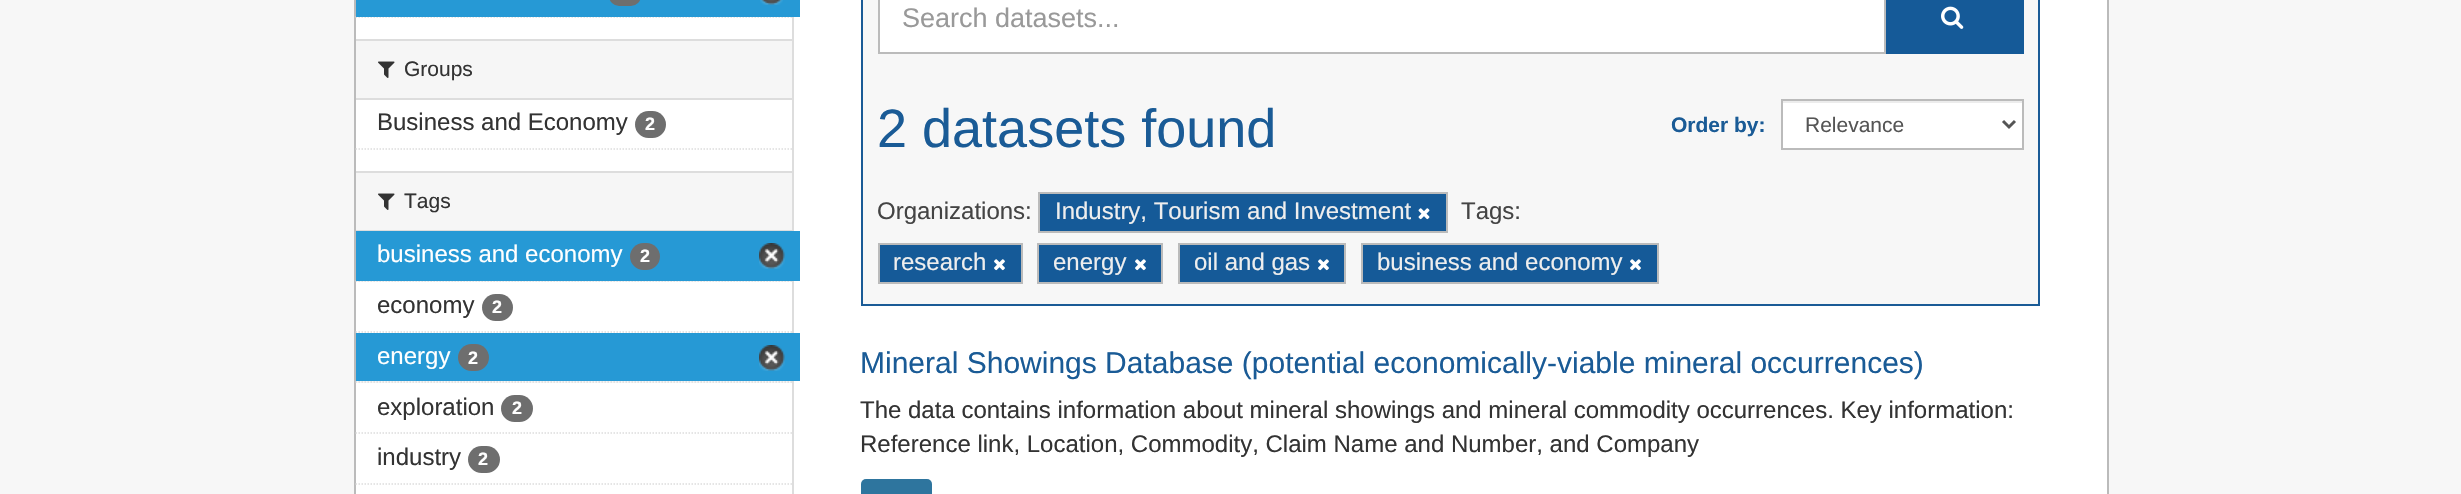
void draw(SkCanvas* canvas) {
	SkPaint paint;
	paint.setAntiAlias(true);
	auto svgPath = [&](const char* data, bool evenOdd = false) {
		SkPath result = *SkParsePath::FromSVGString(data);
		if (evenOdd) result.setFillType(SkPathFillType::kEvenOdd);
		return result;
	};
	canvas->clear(0xfff7f7f7);
	paint.setColor(0xffffffff);
	canvas->drawRect(SkRect::MakeXYWH(355, -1, 1753, 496), paint);
	paint.setStroke(true);
	paint.setStrokeWidth(2);
	paint.setColor(0xffbbbbbb);
	canvas->drawRect(SkRect::MakeXYWH(355, -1, 1753, 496), paint);
	paint.setStrokeWidth(1.5);
	paint.setColor(0xffdddddd);
	paint.setPathEffect(SkDashPathEffect::Make({{1.5f, 1.5f}}, 0));
	canvas->drawPath(svgPath("M355.5 17H792"), paint);
	paint.setPathEffect(nullptr);
	paint.setStroke(false);
	paint.setColor(0xff2699d5);
	canvas->drawRect(SkRect::MakeXYWH(356, 0, 444, 17), paint);
	paint.setColor(0xff6e6e6e);
	canvas->drawRoundRect(SkRect::MakeXYWH(609, -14, 32, 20), 13.5, 13.5, paint);
	canvas->drawImageRect(SkImages::DeferredFromEncodedData(SkData::MakeFromFileName("img1.png")), SkRect::MakeXYWH(760, 0, 23, 5), SkSamplingOptions());
	paint.setColor(0xfff6f6f6);
	canvas->drawRect(SkRect::MakeXYWH(356, 41, 436, 57), paint);
	paint.setColor(0xffdddddd);
	canvas->drawRect(SkRect::MakeXYWH(356, 39, 436, 2), paint);
	canvas->drawRect(SkRect::MakeXYWH(356, 98, 436, 2), paint);
	canvas->drawImageRect(SkImages::DeferredFromEncodedData(SkData::MakeFromFileName("img2.png")), SkRect::MakeXYWH(378, 61, 17, 17), SkSamplingOptions());
	SkFont f1(fontMgr->matchFamilyStyle("Liberation Sans", SkFontStyle::Normal()), 21);
	f1.setSubpixel(true);
	paint.setColor(0xff333333);
	canvas->drawString("Groups", 404, 76, f1, paint);
	SkFont f2(fontMgr->matchFamilyStyle("Liberation Sans", SkFontStyle::Normal()), 24);
	f2.setSubpixel(true);
	canvas->drawString("Business and Economy", 377, 130, f2, paint);
	paint.setColor(0xff6e6e6e);
	canvas->drawRoundRect(SkRect::MakeXYWH(635, 111, 31, 27), 13.5, 13.5, paint);
	SkFont f3(fontMgr->matchFamilyStyle("Liberation Sans", SkFontStyle::Bold()), 18);
	f3.setSubpixel(true);
	paint.setColor(0xffffffff);
	canvas->drawString("2", 645, 130, f3, paint);
	paint.setStroke(true);
	paint.setColor(0xffdddddd);
	paint.setPathEffect(SkDashPathEffect::Make({{1.5f, 1.5f}}, 0));
	canvas->drawPath(svgPath("M355.5 149H792"), paint);
	paint.setPathEffect(nullptr);
	paint.setStroke(false);
	paint.setColor(0xfff6f6f6);
	canvas->drawRect(SkRect::MakeXYWH(356, 173, 436, 57), paint);
	paint.setColor(0xffdddddd);
	canvas->drawRect(SkRect::MakeXYWH(356, 171, 436, 2), paint);
	canvas->drawRect(SkRect::MakeXYWH(356, 230, 436, 1), paint);
	canvas->drawImageRect(SkImages::DeferredFromEncodedData(SkData::MakeFromFileName("img2.png")), SkRect::MakeXYWH(378, 193, 17, 17), SkSamplingOptions());
	paint.setColor(0xff333333);
	canvas->drawString("Tags", 404, 208, f1, paint);
	paint.setColor(0xfff6f6f6);
	canvas->drawRect(SkRect::MakeXYWH(356, 281, 436, 1), paint);
	paint.setStroke(true);
	paint.setColor(0xffdddddd);
	paint.setPathEffect(SkDashPathEffect::Make({{1.5f, 1.5f}}, 0));
	canvas->drawPath(svgPath("M355.5 281H792"), paint);
	paint.setPathEffect(nullptr);
	paint.setStroke(false);
	canvas->drawRect(SkRect::MakeXYWH(792, 17, 2, 477), paint);
	paint.setColor(0xff2699d5);
	canvas->drawRect(SkRect::MakeXYWH(356, 231, 444, 50), paint);
	paint.setColor(0xffffffff);
	canvas->drawString("business and economy", 377, 262, f2, paint);
	paint.setColor(0xff6e6e6e);
	canvas->drawRoundRect(SkRect::MakeXYWH(630, 243, 30, 27), 13.5, 13.5, paint);
	paint.setColor(0xffffffff);
	canvas->drawString("2", 640, 262, f3, paint);
	canvas->drawImageRect(SkImages::DeferredFromEncodedData(SkData::MakeFromFileName("img3.png")), SkRect::MakeXYWH(759, 243, 26, 26), SkSamplingOptions());
	paint.setStroke(true);
	paint.setColor(0xffdddddd);
	paint.setPathEffect(SkDashPathEffect::Make({{1.5f, 1.5f}}, 0));
	canvas->drawPath(svgPath("M355.5 332H792"), paint);
	paint.setPathEffect(nullptr);
	paint.setStroke(false);
	paint.setColor(0xff333333);
	canvas->drawString("economy", 377, 313, f2, paint);
	paint.setColor(0xff6e6e6e);
	canvas->drawRoundRect(SkRect::MakeXYWH(482, 294, 31, 27), 13.5, 13.5, paint);
	paint.setColor(0xffffffff);
	canvas->drawString("2", 492, 313, f3, paint);
	paint.setColor(0xfff6f6f6);
	canvas->drawRect(SkRect::MakeXYWH(356, 381, 436, 2), paint);
	paint.setStroke(true);
	paint.setColor(0xffdddddd);
	paint.setPathEffect(SkDashPathEffect::Make({{1.5f, 1.5f}}, 0));
	canvas->drawPath(svgPath("M355.5 382H792"), paint);
	paint.setPathEffect(nullptr);
	paint.setStroke(false);
	paint.setColor(0xff2699d5);
	canvas->drawRect(SkRect::MakeXYWH(356, 333, 444, 48), paint);
	paint.setColor(0xffffffff);
	canvas->drawString("energy", 377, 364, f2, paint);
	paint.setColor(0xff6e6e6e);
	canvas->drawRoundRect(SkRect::MakeXYWH(458, 344, 31, 27), 13.5, 13.5, paint);
	paint.setColor(0xffffffff);
	canvas->drawString("2", 468, 364, f3, paint);
	canvas->drawImageRect(SkImages::DeferredFromEncodedData(SkData::MakeFromFileName("img3.png")), SkRect::MakeXYWH(759, 345, 26, 26), SkSamplingOptions());
	paint.setStroke(true);
	paint.setColor(0xffdddddd);
	paint.setPathEffect(SkDashPathEffect::Make({{1.5f, 1.5f}}, 0));
	canvas->drawPath(svgPath("M355.5 433H792"), paint);
	paint.setPathEffect(nullptr);
	paint.setStroke(false);
	paint.setColor(0xff333333);
	canvas->drawString("exploration", 377, 415, f2, paint);
	paint.setColor(0xff6e6e6e);
	canvas->drawRoundRect(SkRect::MakeXYWH(501, 395, 32, 27), 13.5, 13.5, paint);
	paint.setColor(0xffffffff);
	canvas->drawString("2", 512, 414, f3, paint);
	paint.setStroke(true);
	paint.setColor(0xffdddddd);
	paint.setPathEffect(SkDashPathEffect::Make({{1.5f, 1.5f}}, 0));
	canvas->drawPath(svgPath("M355.5 484H792"), paint);
	paint.setPathEffect(nullptr);
	paint.setStroke(false);
	paint.setColor(0xff333333);
	canvas->drawString("industry", 377, 465, f2, paint);
	paint.setColor(0xff6e6e6e);
	canvas->drawRoundRect(SkRect::MakeXYWH(468, 446, 32, 27), 13.5, 13.5, paint);
	paint.setColor(0xffffffff);
	canvas->drawString("2", 478, 465, f3, paint);
	paint.setColor(0xfff7f7f7);
	canvas->drawRect(SkRect::MakeXYWH(862, -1, 1177, 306), paint);
	paint.setStroke(true);
	paint.setStrokeWidth(2);
	paint.setColor(0xff1a5b96);
	canvas->drawRect(SkRect::MakeXYWH(862, -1, 1177, 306), paint);
	paint.setStroke(false);
	paint.setColor(0xffffffff);
	canvas->drawRect(SkRect::MakeXYWH(879, -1, 1006, 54), paint);
	paint.setStroke(true);
	paint.setColor(0xffbbbbbb);
	canvas->drawRect(SkRect::MakeXYWH(879, -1, 1006, 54), paint);
	SkFont f4(fontMgr->matchFamilyStyle("Liberation Sans", SkFontStyle::Normal()), 27);
	f4.setSubpixel(true);
	paint.setStroke(false);
	paint.setColor(0xff999999);
	canvas->drawString("Search datasets...", 902, 27, f4, paint);
	paint.setColor(0xff155a98);
	canvas->drawRect(SkRect::MakeXYWH(1886, 0, 138, 54), paint);
	canvas->drawImageRect(SkImages::DeferredFromEncodedData(SkData::MakeFromFileName("img4.png")), SkRect::MakeXYWH(1941, 6, 23, 23), SkSamplingOptions());
	SkFont f5(fontMgr->matchFamilyStyle("Liberation Sans", SkFontStyle::Normal()), 54);
	f5.setSubpixel(true);
	paint.setColor(0xff1a5b96);
	canvas->drawString("2 datasets found", 877, 147, f5, paint);
	SkFont f6(fontMgr->matchFamilyStyle("Liberation Sans", SkFontStyle::Bold()), 21);
	f6.setSubpixel(true);
	canvas->drawString("Order by:", 1671, 132, f6, paint);
	paint.setColor(0xffffffff);
	canvas->drawRect(SkRect::MakeXYWH(1783, 103, 239, 45), paint);
	paint.setColor(0xffececec);
	canvas->drawRect(SkRect::MakeXYWH(1782, 101, 240, 2), paint);
	paint.setStroke(true);
	paint.setColor(0xffbbbbbb);
	canvas->drawRect(SkRect::MakeXYWH(1782, 100, 241, 49), paint);
	paint.setStrokeWidth(3);
	paint.setColor(0xff555555);
	canvas->drawPath(svgPath("M2003 121L2009 127L2015 121"), paint);
	paint.setStroke(false);
	canvas->drawString("Relevance", 1805, 132, f1, paint);
	paint.setColor(0xff444444);
	canvas->drawString("Organizations:", 877, 219, f2, paint);
	paint.setColor(0xff155a98);
	canvas->drawRect(SkRect::MakeXYWH(1039, 193, 408, 39), paint);
	paint.setStroke(true);
	paint.setStrokeWidth(2);
	paint.setColor(0xffbbbbbb);
	canvas->drawRect(SkRect::MakeXYWH(1039, 193, 408, 39), paint);
	paint.setStroke(false);
	paint.setColor(0xffeeeeee);
	canvas->drawString("Industry, Tourism and Investment", 1055, 219, f2, paint);
	canvas->drawImageRect(SkImages::DeferredFromEncodedData(SkData::MakeFromFileName("img5.png")), SkRect::MakeXYWH(1418, 208, 12, 12), SkSamplingOptions());
	paint.setColor(0xff444444);
	canvas->drawString("Tags:", 1461, 219, f2, paint);
	paint.setColor(0xff155a98);
	canvas->drawRect(SkRect::MakeXYWH(879, 244, 143, 39), paint);
	paint.setStroke(true);
	paint.setColor(0xffbbbbbb);
	canvas->drawRect(SkRect::MakeXYWH(879, 244, 143, 39), paint);
	paint.setStroke(false);
	paint.setColor(0xffeeeeee);
	canvas->drawString("research", 893, 270, f2, paint);
	canvas->drawImageRect(SkImages::DeferredFromEncodedData(SkData::MakeFromFileName("img6.png")), SkRect::MakeXYWH(994, 259, 11, 12), SkSamplingOptions());
	paint.setColor(0xff155a98);
	canvas->drawRect(SkRect::MakeXYWH(1038, 244, 124, 39), paint);
	paint.setStroke(true);
	paint.setColor(0xffbbbbbb);
	canvas->drawRect(SkRect::MakeXYWH(1038, 244, 124, 39), paint);
	paint.setStroke(false);
	paint.setColor(0xffeeeeee);
	canvas->drawString("energy", 1053, 270, f2, paint);
	canvas->drawImageRect(SkImages::DeferredFromEncodedData(SkData::MakeFromFileName("img6.png")), SkRect::MakeXYWH(1135, 259, 11, 12), SkSamplingOptions());
	paint.setColor(0xff155a98);
	canvas->drawRect(SkRect::MakeXYWH(1179, 244, 166, 39), paint);
	paint.setStroke(true);
	paint.setColor(0xffbbbbbb);
	canvas->drawRect(SkRect::MakeXYWH(1179, 244, 166, 39), paint);
	paint.setStroke(false);
	paint.setColor(0xffeeeeee);
	canvas->drawString("oil and gas", 1194, 270, f2, paint);
	canvas->drawImageRect(SkImages::DeferredFromEncodedData(SkData::MakeFromFileName("img6.png")), SkRect::MakeXYWH(1318, 259, 11, 12), SkSamplingOptions());
	paint.setColor(0xff155a98);
	canvas->drawRect(SkRect::MakeXYWH(1362, 244, 296, 39), paint);
	paint.setStroke(true);
	paint.setColor(0xffbbbbbb);
	canvas->drawRect(SkRect::MakeXYWH(1362, 244, 296, 39), paint);
	paint.setStroke(false);
	paint.setColor(0xffeeeeee);
	canvas->drawString("business and economy", 1377, 270, f2, paint);
	canvas->drawImageRect(SkImages::DeferredFromEncodedData(SkData::MakeFromFileName("img6.png")), SkRect::MakeXYWH(1630, 259, 11, 12), SkSamplingOptions());
	SkFont f7(fontMgr->matchFamilyStyle("Liberation Sans", SkFontStyle::Normal()), 30);
	f7.setSubpixel(true);
	paint.setColor(0xff1a5b96);
	canvas->drawString("Mineral Showings Database (potential economically-viable mineral occurrences)", 860, 373, f7, paint);
	paint.setColor(0xff333333);
	canvas->drawString("The data contains information about mineral showings and mineral commodity occurrences. Key information:", 860, 418, f2, paint);
	canvas->drawString("Reference link, Location, Commodity, Claim Name and Number, and Company", 860, 452, f2, paint);
	paint.setColor(0xff2e759e);
	canvas->drawRoundRect(SkRect::MakeXYWH(861, 479, 71, 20), 5, 5, paint);
}
